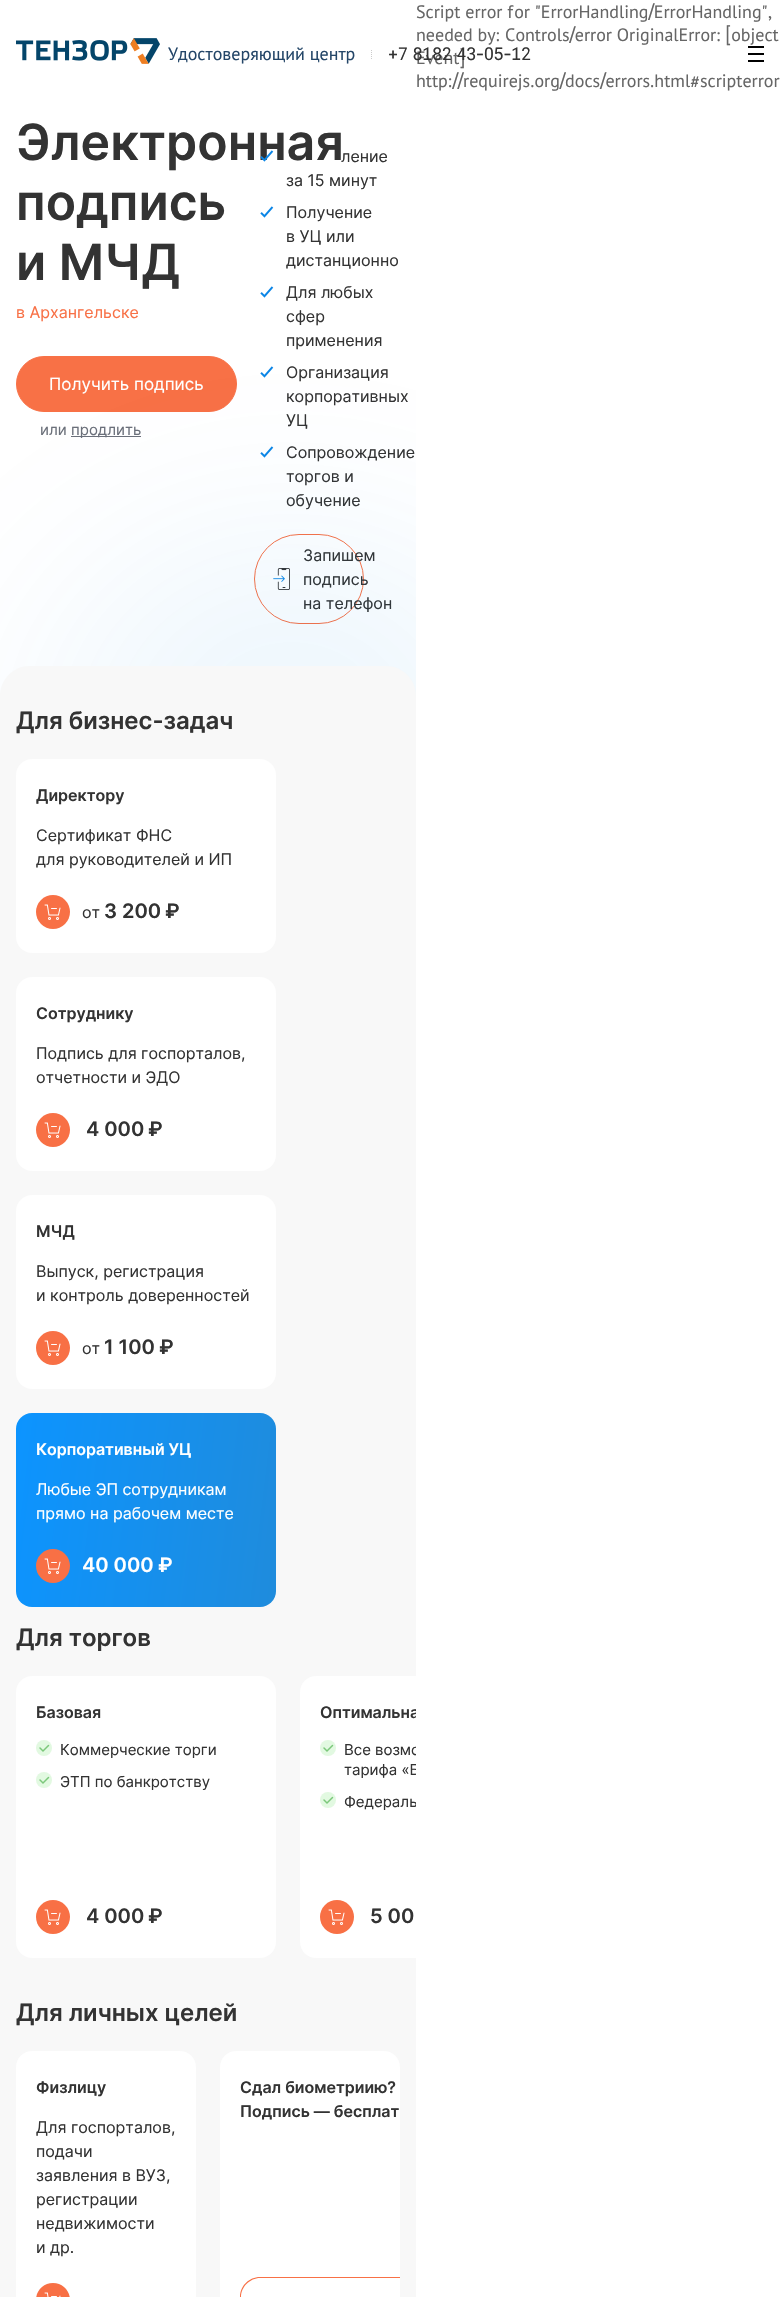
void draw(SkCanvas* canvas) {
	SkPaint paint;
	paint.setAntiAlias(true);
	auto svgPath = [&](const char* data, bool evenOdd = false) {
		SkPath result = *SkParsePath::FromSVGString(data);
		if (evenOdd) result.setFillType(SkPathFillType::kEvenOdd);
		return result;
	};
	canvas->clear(0xffffffff);
	SkFont f1(fontMgr->matchFamilyStyle("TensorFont", SkFontStyle::Normal()), 18);
	f1.setSubpixel(true);
	paint.setColor(0xff666666);
	canvas->drawString("Script error for \"ErrorHandling/ErrorHandling\",", 416, 18, f1, paint);
	canvas->drawString("needed by: Controls/error OriginalError: [object", 416, 41, f1, paint);
	canvas->drawString("Event]", 416, 64, f1, paint);
	canvas->drawString("http://requirejs.org/docs/errors.html#scripterror", 416, 87, f1, paint);
	SkFont f2(fontMgr->matchFamilyStyle("Inter", SkFontStyle(600, SkFontStyle::kNormal_Width, SkFontStyle::kUpright_Slant)), 50);
	f2.setSubpixel(true);
	paint.setColor(0xff333333);
	canvas->drawString("Электронная", 16, 160, f2, paint);
	canvas->drawString("подпись", 16, 220, f2, paint);
	canvas->drawString("и МЧД", 16, 280, f2, paint);
	SkFont f3(fontMgr->matchFamilyStyle("Inter", SkFontStyle::Normal()), 16);
	f3.setSubpixel(true);
	paint.setColor(0xfff87045);
	canvas->drawString("в Архангельске", 16, 318, f3, paint);
	canvas->drawRoundRect(SkRect::MakeXYWH(16.5, 356.5, 220, 55), 27.5, 27.5, paint);
	paint.setStroke(true);
	paint.setStrokeWidth(1);
	canvas->drawRoundRect(SkRect::MakeXYWH(16.5, 356.5, 220, 55), 27.5, 27.5, paint);
	SkFont f4(fontMgr->matchFamilyStyle("Inter", SkFontStyle::Normal()), 17);
	f4.setSubpixel(true);
	paint.setStroke(false);
	paint.setColor(0xffffffff);
	canvas->drawString("Получить подпись", 49, 390, f4, paint);
	SkFont f5(fontMgr->matchFamilyStyle("Inter", SkFontStyle::Normal()), 15);
	f5.setSubpixel(true);
	paint.setColor(0xff6a6f79);
	canvas->drawString("или", 40, 435, f5, paint);
	canvas->drawRect(SkRect::MakeXYWH(71, 436, 70, 1), paint);
	canvas->drawString("продлить", 71, 435, f5, paint);
	canvas->drawImageRect(SkImages::DeferredFromEncodedData(SkData::MakeFromFileName("img1.png")), SkRect::MakeXYWH(260, 150, 14, 12), SkSamplingOptions());
	paint.setColor(0xff333333);
	canvas->drawString("ление", 341, 162, f3, paint);
	canvas->drawString("за 15 минут", 286, 186, f3, paint);
	canvas->drawImageRect(SkImages::DeferredFromEncodedData(SkData::MakeFromFileName("img2.png")), SkRect::MakeXYWH(260, 206, 14, 12), SkSamplingOptions());
	canvas->drawString("Получение", 286, 218, f3, paint);
	canvas->drawString("в УЦ или", 286, 242, f3, paint);
	canvas->drawString("дистанционно", 286, 266, f3, paint);
	canvas->drawImageRect(SkImages::DeferredFromEncodedData(SkData::MakeFromFileName("img2.png")), SkRect::MakeXYWH(260, 286, 14, 12), SkSamplingOptions());
	canvas->drawString("Для любых", 286, 298, f3, paint);
	canvas->drawString("сфер", 286, 322, f3, paint);
	canvas->drawString("применения", 286, 346, f3, paint);
	canvas->drawImageRect(SkImages::DeferredFromEncodedData(SkData::MakeFromFileName("img2.png")), SkRect::MakeXYWH(260, 366, 14, 12), SkSamplingOptions());
	canvas->drawString("Организация", 286, 378, f3, paint);
	canvas->drawString("корпоративных", 286, 402, f3, paint);
	canvas->drawString("УЦ", 286, 426, f3, paint);
	canvas->drawImageRect(SkImages::DeferredFromEncodedData(SkData::MakeFromFileName("img2.png")), SkRect::MakeXYWH(260, 446, 14, 12), SkSamplingOptions());
	canvas->drawString("Сопровождение", 286, 458, f3, paint);
	canvas->drawString("торгов и", 286, 482, f3, paint);
	canvas->drawString("обучение", 286, 506, f3, paint);
	paint.setStroke(true);
	paint.setColor(0xfff87045);
	canvas->drawRoundRect(SkRect::MakeXYWH(254.5, 534.5, 109, 89), 44.5, 44.5, paint);
	paint.setStroke(false);
	paint.setColor(0xff333333);
	canvas->drawString("Запишем", 303, 561, f3, paint);
	canvas->drawImageRect(SkImages::DeferredFromEncodedData(SkData::MakeFromFileName("img3.png")), SkRect::MakeXYWH(273, 568, 17, 22), SkSamplingOptions());
	canvas->drawString("подпись", 303, 585, f3, paint);
	canvas->drawString("на телефон", 303, 609, f3, paint);
	canvas->save();
	canvas->clipRect(SkRect::MakeXYWH(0, 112, 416, 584));
	paint.setColor(0x1a0a85e6);
	paint.setMaskFilter(SkMaskFilter::MakeBlur(kNormal_SkBlurStyle, 125));
	canvas->drawRoundRect(SkRect::MakeXYWH(41, 562, 501, 501), 250.5, 250.5, paint);
	paint.setMaskFilter(nullptr);
	canvas->restore();
	paint.setColor(0xfff8f8f8);
	canvas->drawPath(svgPath("M30 666H386C402.5 666 416 679.5 416 696V2297H0V696C0 679.5 13.5 666 30 666Z"), paint);
	SkFont f6(fontMgr->matchFamilyStyle("Inter", SkFontStyle(600, SkFontStyle::kNormal_Width, SkFontStyle::kUpright_Slant)), 24);
	f6.setSubpixel(true);
	paint.setColor(0xff333333);
	canvas->drawString("Для бизнес-задач", 16, 729, f6, paint);
	paint.setColor(0xffffffff);
	canvas->drawRoundRect(SkRect::MakeXYWH(16, 759, 260, 194), 16, 16, paint);
	SkFont f7(fontMgr->matchFamilyStyle("Inter", SkFontStyle(600, SkFontStyle::kNormal_Width, SkFontStyle::kUpright_Slant)), 16);
	f7.setSubpixel(true);
	paint.setColor(0xff333333);
	canvas->drawString("Директору", 36, 801, f7, paint);
	canvas->drawString("Сертификат ФНС", 36, 841, f3, paint);
	canvas->drawString("для руководителей и ИП", 36, 865, f3, paint);
	paint.setColor(0xfff87045);
	canvas->drawCircle(53, 912, 17, paint);
	canvas->drawImageRect(SkImages::DeferredFromEncodedData(SkData::MakeFromFileName("img4.png")), SkRect::MakeXYWH(44, 904, 17, 16), SkSamplingOptions());
	paint.setColor(0xff333333);
	canvas->drawString("от", 82, 918, f3, paint);
	SkFont f8(fontMgr->matchFamilyStyle("Inter", SkFontStyle(600, SkFontStyle::kNormal_Width, SkFontStyle::kUpright_Slant)), 20);
	f8.setSubpixel(true);
	canvas->drawString("3 200", 104, 918, f8, paint);
	canvas->drawString("₽", 165, 918, f8, paint);
	paint.setColor(0xffffffff);
	canvas->drawRoundRect(SkRect::MakeXYWH(16, 977, 260, 194), 16, 16, paint);
	paint.setColor(0xff333333);
	canvas->drawString("Сотруднику", 36, 1019, f7, paint);
	canvas->drawString("Подпись для госпорталов,", 36, 1059, f3, paint);
	canvas->drawString("отчетности и ЭДО", 36, 1083, f3, paint);
	paint.setColor(0xfff87045);
	canvas->drawCircle(53, 1130, 17, paint);
	canvas->drawImageRect(SkImages::DeferredFromEncodedData(SkData::MakeFromFileName("img4.png")), SkRect::MakeXYWH(44, 1122, 17, 16), SkSamplingOptions());
	paint.setColor(0xff333333);
	canvas->drawString("4 000", 86, 1136, f8, paint);
	canvas->drawString("₽", 148, 1136, f8, paint);
	paint.setColor(0xffffffff);
	canvas->drawRoundRect(SkRect::MakeXYWH(16, 1195, 260, 194), 16, 16, paint);
	paint.setColor(0xff333333);
	canvas->drawString("МЧД", 36, 1237, f7, paint);
	canvas->drawString("Выпуск, регистрация", 36, 1277, f3, paint);
	canvas->drawString("и контроль доверенностей", 36, 1301, f3, paint);
	paint.setColor(0xfff87045);
	canvas->drawCircle(53, 1348, 17, paint);
	canvas->drawImageRect(SkImages::DeferredFromEncodedData(SkData::MakeFromFileName("img4.png")), SkRect::MakeXYWH(44, 1340, 17, 16), SkSamplingOptions());
	paint.setColor(0xff333333);
	canvas->drawString("от", 82, 1354, f3, paint);
	canvas->drawString("1 100", 104, 1354, f8, paint);
	canvas->drawString("₽", 159, 1354, f8, paint);
	{
		const SkColor colors[] = {0xff0c94ff, 0xff238ad5};
		const float stops[] = {0, 1};
		const SkPoint ends[] = {{6.3, 1493}, {344, 1534}};
		paint.setShader(SkGradientShader::MakeLinear(ends, colors, stops, 2, SkTileMode::kClamp));
		paint.setAlpha(255);
	}
	canvas->drawRoundRect(SkRect::MakeXYWH(16, 1413, 260, 194), 16, 16, paint);
	paint.setShader(nullptr);
	paint.setColor(0xffffffff);
	canvas->drawString("Корпоративный УЦ", 36, 1455, f7, paint);
	canvas->drawString("Любые ЭП сотрудникам", 36, 1495, f3, paint);
	canvas->drawString("прямо на рабочем месте", 36, 1519, f3, paint);
	paint.setColor(0xfff87045);
	canvas->drawCircle(53, 1566, 17, paint);
	canvas->drawImageRect(SkImages::DeferredFromEncodedData(SkData::MakeFromFileName("img4.png")), SkRect::MakeXYWH(44, 1558, 17, 16), SkSamplingOptions());
	paint.setColor(0xffffffff);
	canvas->drawString("40 000", 82, 1572, f8, paint);
	canvas->drawString("₽", 158, 1572, f8, paint);
	paint.setColor(0xff333333);
	canvas->drawString("Для торгов", 16, 1646, f6, paint);
	paint.setColor(0xffffffff);
	canvas->drawRoundRect(SkRect::MakeXYWH(16, 1676, 260, 282), 16, 16, paint);
	paint.setColor(0xff333333);
	canvas->drawString("Базовая", 36, 1718, f7, paint);
	paint.setColor(0xffe2f9e1);
	canvas->drawCircle(44, 1748, 8, paint);
	paint.setStroke(true);
	paint.setStrokeWidth(1.5);
	paint.setStrokeCap(SkPaint::kRound_Cap);
	paint.setColor(0xff7cc87b);
	canvas->drawPath(svgPath("M40 1748L43 1751L48.5 1745.5"), paint);
	paint.setStroke(false);
	paint.setColor(0xff333333);
	canvas->drawString("Коммерческие торги", 60, 1755, f5, paint);
	paint.setColor(0xffe2f9e1);
	canvas->drawCircle(44, 1780, 8, paint);
	paint.setStroke(true);
	paint.setColor(0xff7cc87b);
	canvas->drawPath(svgPath("M40 1780L43 1783L48.5 1777.5"), paint);
	paint.setStroke(false);
	paint.setColor(0xff333333);
	canvas->drawString("ЭТП по банкротству", 60, 1787, f5, paint);
	paint.setColor(0xfff87045);
	canvas->drawCircle(53, 1917, 17, paint);
	canvas->drawImageRect(SkImages::DeferredFromEncodedData(SkData::MakeFromFileName("img4.png")), SkRect::MakeXYWH(44, 1909, 17, 16), SkSamplingOptions());
	paint.setColor(0xff333333);
	canvas->drawString("4 000", 86, 1923, f8, paint);
	canvas->drawString("₽", 148, 1923, f8, paint);
	paint.setColor(0xffffffff);
	canvas->drawPath(svgPath("M316 1676H416V1958H316C307 1958 300 1951 300 1942V1692C300 1683 307 1676 316 1676Z"), paint);
	canvas->save();
	canvas->clipRect(SkRect::MakeXYWH(0, 1676, 416, 322));
	paint.setColor(0xff333333);
	canvas->drawString("Оптимальна", 320, 1718, f7, paint);
	canvas->restore();
	paint.setColor(0xffe2f9e1);
	canvas->drawCircle(328, 1748, 8, paint);
	paint.setStroke(true);
	paint.setColor(0xff7cc87b);
	canvas->drawPath(svgPath("M324 1748L327 1751L332.5 1745.5"), paint);
	canvas->save();
	canvas->clipRect(SkRect::MakeXYWH(0, 1676, 416, 322));
	paint.setStroke(false);
	paint.setColor(0xff333333);
	canvas->drawString("Все возмо", 344, 1755, f5, paint);
	canvas->drawString("тарифа «Б", 344, 1775, f5, paint);
	canvas->restore();
	paint.setColor(0xffe2f9e1);
	canvas->drawCircle(328, 1800, 8, paint);
	paint.setStroke(true);
	paint.setColor(0xff7cc87b);
	canvas->drawPath(svgPath("M324 1800L327 1803L332.5 1797.5"), paint);
	canvas->save();
	canvas->clipRect(SkRect::MakeXYWH(0, 1676, 416, 322));
	paint.setStroke(false);
	paint.setColor(0xff333333);
	canvas->drawString("Федераль", 344, 1807, f5, paint);
	canvas->restore();
	paint.setColor(0xfff87045);
	canvas->drawCircle(337, 1917, 17, paint);
	canvas->drawImageRect(SkImages::DeferredFromEncodedData(SkData::MakeFromFileName("img4.png")), SkRect::MakeXYWH(328, 1909, 17, 16), SkSamplingOptions());
	paint.setColor(0xff333333);
	canvas->drawString("5 00", 370, 1923, f8, paint);
	canvas->drawString("Для личных целей", 16, 2021, f6, paint);
	paint.setColor(0xffffffff);
	canvas->drawPath(svgPath("M32 2051H180C189 2051 196 2058 196 2067V2297H16V2067C16 2058 23 2051 32 2051Z"), paint);
	paint.setColor(0xff333333);
	canvas->drawString("Физлицу", 36, 2093, f7, paint);
	canvas->drawString("Для госпорталов,", 36, 2133, f3, paint);
	canvas->drawString("подачи", 36, 2157, f3, paint);
	canvas->drawString("заявления в ВУЗ,", 36, 2181, f3, paint);
	canvas->drawString("регистрации", 36, 2205, f3, paint);
	canvas->drawString("недвижимости", 36, 2229, f3, paint);
	canvas->drawString("и др.", 36, 2253, f3, paint);
	paint.setColor(0xfff87045);
	canvas->drawPath(svgPath("M53 2283C62.5 2283 70 2290.5 70 2300V2297H36V2300C36 2290.5 43.5 2283 53 2283Z"), paint);
	canvas->drawImageRect(SkImages::DeferredFromEncodedData(SkData::MakeFromFileName("img5.png")), SkRect::MakeXYWH(44, 2292, 17, 5), SkSamplingOptions());
	paint.setColor(0xffffffff);
	canvas->drawPath(svgPath("M236 2051H384C393 2051 400 2058 400 2067V2297H220V2067C220 2058 227 2051 236 2051Z"), paint);
	paint.setColor(0xff333333);
	canvas->drawString("Сдал биометриию?", 240, 2093, f7, paint);
	canvas->drawString("Подпись — бесплат", 240, 2117, f7, paint);
	paint.setColor(0xfff87045);
	canvas->drawPath(svgPath("M260 2277C249 2277 240 2286 240 2297C240 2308 249 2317 260 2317H400V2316H260C250 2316 241 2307 241 2297C241 2287 250 2278 260 2278H400V2277Z"), paint);
	canvas->drawImageRect(SkImages::DeferredFromEncodedData(SkData::MakeFromFileName("img6.png")), SkRect::MakeXYWH(16, 38, 144, 26), SkSamplingOptions());
	paint.setColor(0xff244668);
	canvas->drawString("Удостоверяющий центр", 168, 60, f1, paint);
	paint.setStroke(true);
	paint.setStrokeWidth(1);
	paint.setStrokeCap(SkPaint::kButt_Cap);
	paint.setColor(0xffcccccc);
	paint.setPathEffect(SkDashPathEffect::Make({{1, 1}}, 0));
	canvas->drawPath(svgPath("M371.5 50V60"), paint);
	paint.setPathEffect(nullptr);
	paint.setStroke(false);
	paint.setColor(0xff333333);
	canvas->drawString("+7 8182 43-05-12", 388, 60, f1, paint);
	paint.setColor(0xff000000);
	canvas->drawRect(SkRect::MakeXYWH(748, 46, 16, 2), paint);
	canvas->drawRect(SkRect::MakeXYWH(748, 53, 16, 2), paint);
	canvas->drawRect(SkRect::MakeXYWH(748, 60, 16, 2), paint);
}
